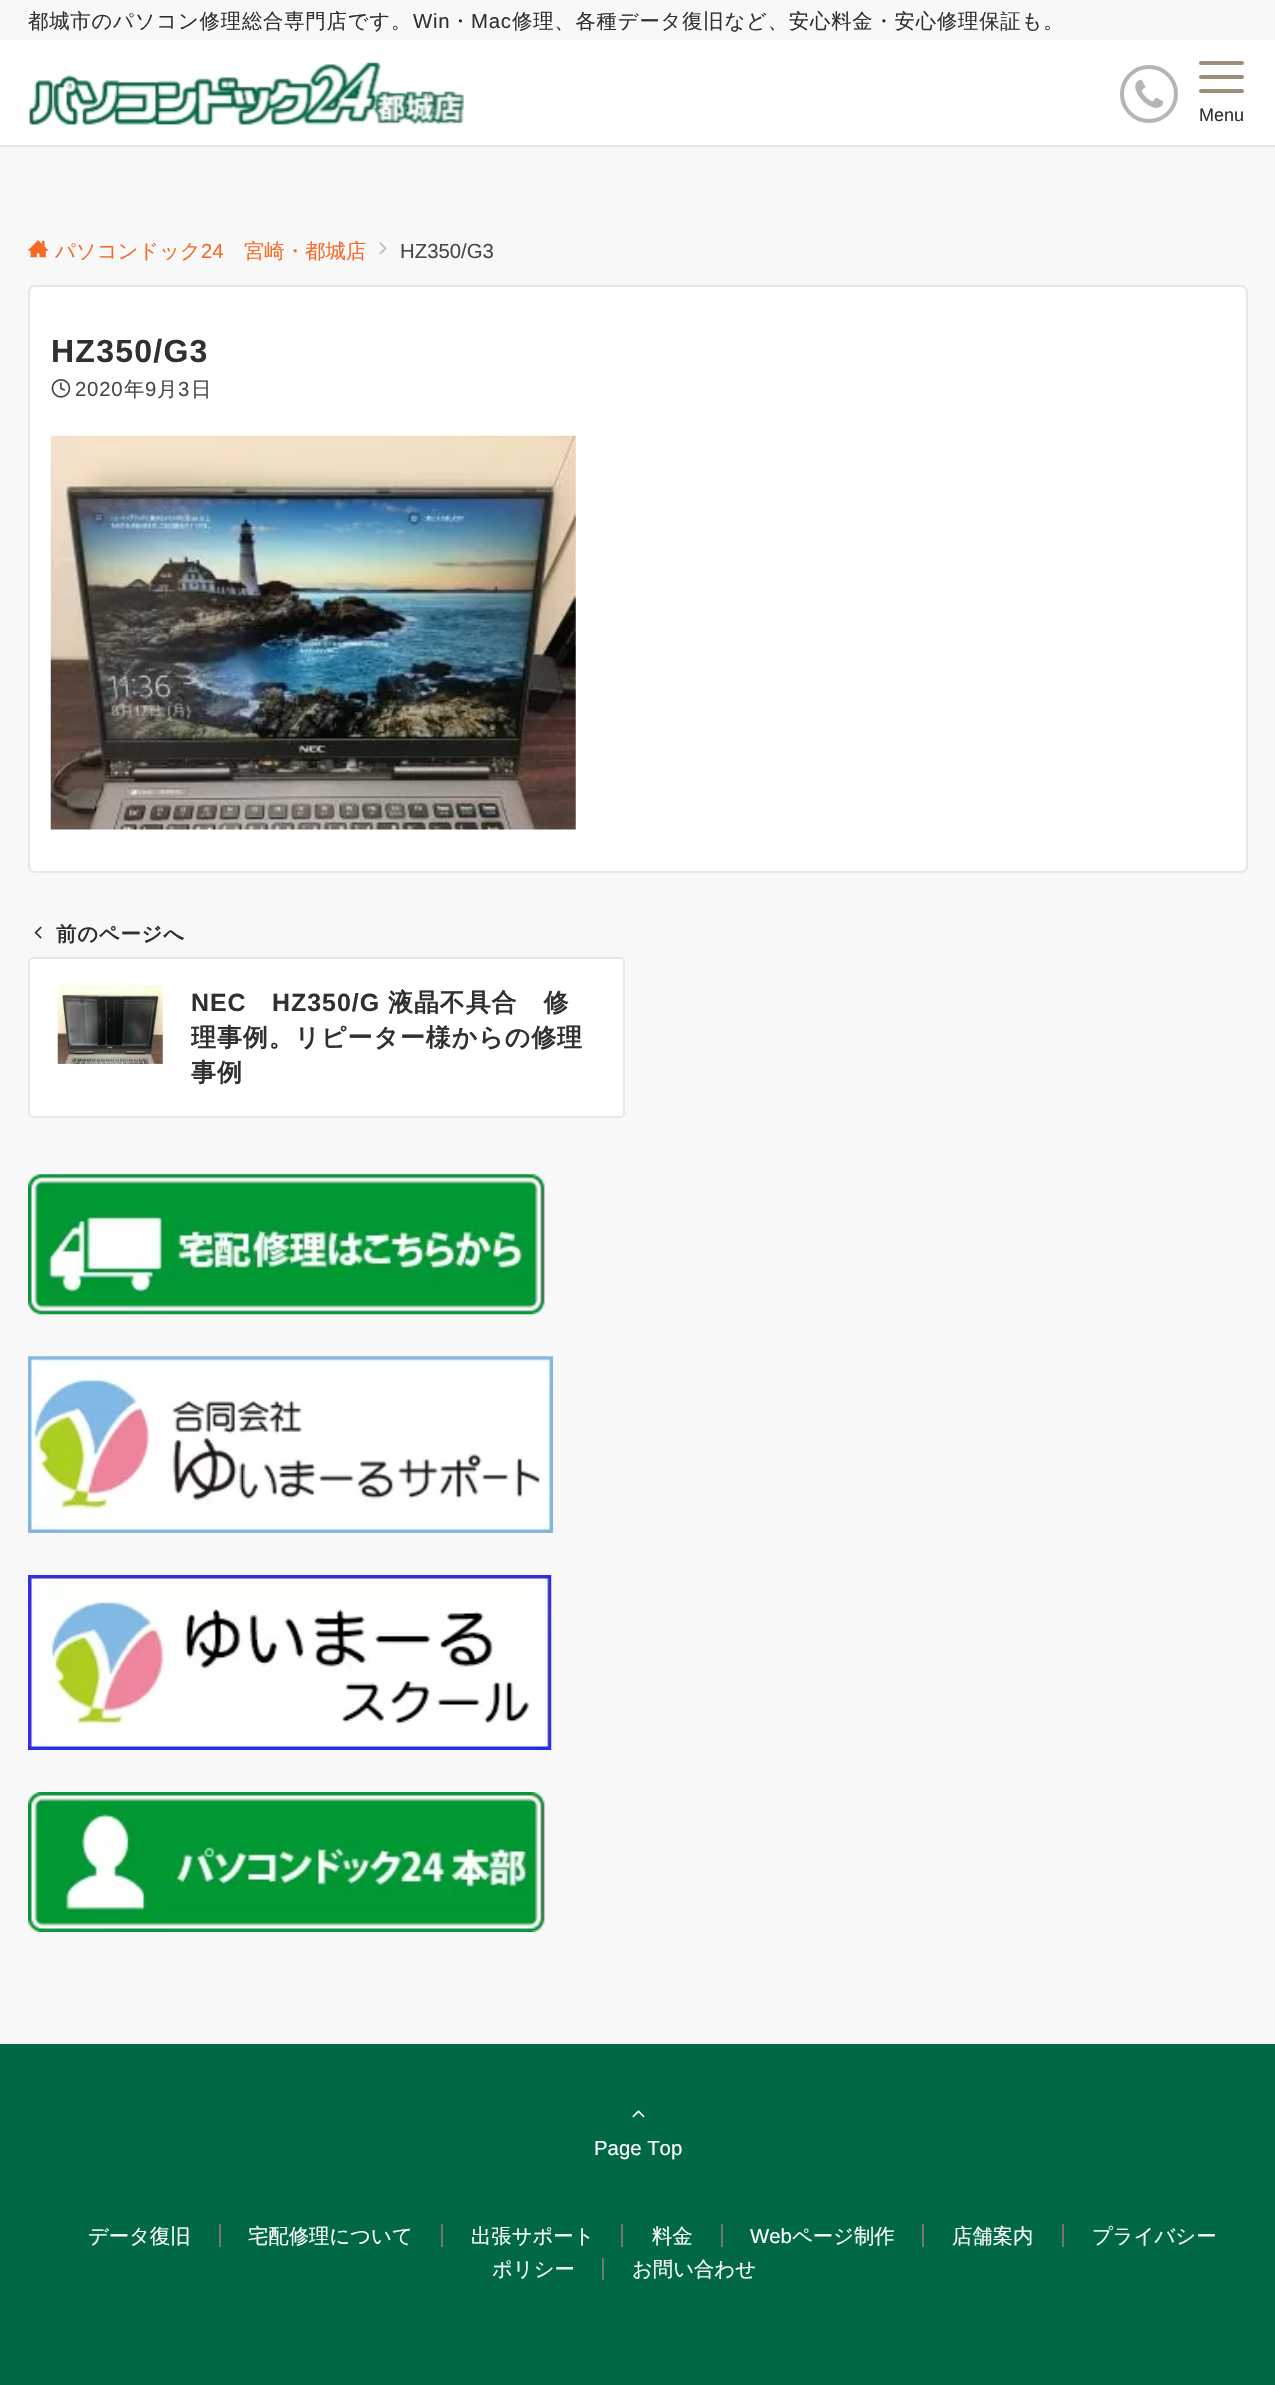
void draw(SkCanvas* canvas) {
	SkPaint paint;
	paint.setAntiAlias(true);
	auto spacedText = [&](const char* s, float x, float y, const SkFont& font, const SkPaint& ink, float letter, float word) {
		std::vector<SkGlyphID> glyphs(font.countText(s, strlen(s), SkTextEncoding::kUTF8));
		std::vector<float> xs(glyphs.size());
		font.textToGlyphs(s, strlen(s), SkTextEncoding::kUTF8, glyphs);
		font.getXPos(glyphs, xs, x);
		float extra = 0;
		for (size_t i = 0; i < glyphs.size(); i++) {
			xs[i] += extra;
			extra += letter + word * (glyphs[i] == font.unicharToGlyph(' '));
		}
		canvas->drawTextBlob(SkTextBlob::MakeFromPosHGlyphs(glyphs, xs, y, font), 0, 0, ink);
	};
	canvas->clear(0xfff8f8f8);
	SkFont f1(fontMgr->matchFamilyStyle("WenQuanYi Zen Hei", SkFontStyle(500, SkFontStyle::kNormal_Width, SkFontStyle::kUpright_Slant)), 20.35);
	f1.setSubpixel(true);
	paint.setColor(0xff303030);
	spacedText("都城市のパソコン修理総合専門店です。", 28, 28, f1, paint, 0.8, 0);
	SkFont f2(fontMgr->matchFamilyStyle("Liberation Sans", SkFontStyle::Normal()), 20.35);
	f2.setSubpixel(true);
	spacedText("Win", 413, 28, f2, paint, 0.8, 0);
	spacedText("・", 450, 28, f1, paint, 0.8, 0);
	spacedText("Mac", 471, 28, f2, paint, 0.8, 0);
	spacedText("修理、各種データ復旧など、安心料金・安心修理保証も。", 512, 28, f1, paint, 0.8, 0);
	paint.setColor(0xffffffff);
	canvas->drawRect(SkRect::MakeXYWH(0, 40, 1275, 105), paint);
	paint.setColor(0xffe6e6e6);
	canvas->drawRect(SkRect::MakeXYWH(0, 145, 1275, 2), paint);
	canvas->drawImageRect(SkImages::DeferredFromEncodedData(SkData::MakeFromFileName("img1.png")), SkRect::MakeXYWH(29, 62, 435, 63), SkSamplingOptions());
	paint.setStroke(true);
	paint.setStrokeWidth(4);
	paint.setColor(0xffb5b5b5);
	canvas->drawCircle(1149, 94, 27, paint);
	canvas->drawImageRect(SkImages::DeferredFromEncodedData(SkData::MakeFromFileName("img2.png")), SkRect::MakeXYWH(1135, 80, 29, 28), SkSamplingOptions());
	paint.setStroke(false);
	paint.setColor(0xff9b8d77);
	canvas->drawRoundRect(SkRect::MakeXYWH(1199, 61, 45, 4), 2, 2, paint);
	canvas->drawRoundRect(SkRect::MakeXYWH(1199, 75, 45, 4), 2, 2, paint);
	canvas->drawRoundRect(SkRect::MakeXYWH(1199, 89, 45, 4), 2, 2, paint);
	SkFont f3(fontMgr->matchFamilyStyle("Liberation Sans", SkFontStyle::Normal()), 18);
	f3.setSubpixel(true);
	paint.setColor(0xff303030);
	canvas->drawString("Menu", 1199, 121, f3, paint);
	canvas->drawImageRect(SkImages::DeferredFromEncodedData(SkData::MakeFromFileName("img3.png")), SkRect::MakeXYWH(28, 240, 21, 18), SkSamplingOptions());
	paint.setColor(0xfff46b27);
	canvas->drawString("パソコンドック", 55, 258, f1, paint);
	canvas->drawString("24", 201, 258, f2, paint);
	canvas->drawString("宮崎・都城店", 244, 258, f1, paint);
	canvas->drawImageRect(SkImages::DeferredFromEncodedData(SkData::MakeFromFileName("img4.png")), SkRect::MakeXYWH(379, 242, 8, 13), SkSamplingOptions());
	paint.setColor(0xff484848);
	canvas->drawString("HZ350/G3", 400, 258, f2, paint);
	paint.setColor(0xffffffff);
	canvas->drawRoundRect(SkRect::MakeXYWH(29, 286, 1218, 586), 6, 6, paint);
	paint.setStroke(true);
	paint.setStrokeWidth(2);
	paint.setColor(0xffe5e7e8);
	canvas->drawRoundRect(SkRect::MakeXYWH(29, 286, 1218, 586), 6, 6, paint);
	SkFont f4(fontMgr->matchFamilyStyle("Liberation Sans", SkFontStyle::Bold()), 32);
	f4.setSubpixel(true);
	paint.setStroke(false);
	paint.setColor(0xff303030);
	spacedText("HZ350/G3", 51, 362, f4, paint, 1.25, 0);
	canvas->drawImageRect(SkImages::DeferredFromEncodedData(SkData::MakeFromFileName("img5.png")), SkRect::MakeXYWH(51, 379, 20, 19), SkSamplingOptions());
	paint.setColor(0xff484848);
	spacedText("2020", 75, 396, f2, paint, 0.8, 0);
	spacedText("年", 124, 396, f1, paint, 0.8, 0);
	spacedText("9", 145, 396, f2, paint, 0.8, 0);
	spacedText("月", 157, 396, f1, paint, 0.8, 0);
	spacedText("3", 178, 396, f2, paint, 0.8, 0);
	spacedText("日", 191, 396, f1, paint, 0.8, 0);
	canvas->drawImageRect(SkImages::DeferredFromEncodedData(SkData::MakeFromFileName("img6.png")), SkRect::MakeXYWH(50, 435, 526, 395), SkSamplingOptions());
	paint.setColor(0xffffffff);
	canvas->drawRoundRect(SkRect::MakeXYWH(29, 958, 595, 159), 4, 4, paint);
	paint.setStroke(true);
	paint.setColor(0xffe5e7e8);
	canvas->drawRoundRect(SkRect::MakeXYWH(29, 958, 595, 159), 4, 4, paint);
	canvas->drawImageRect(SkImages::DeferredFromEncodedData(SkData::MakeFromFileName("img7.png")), SkRect::MakeXYWH(34, 926, 8, 13), SkSamplingOptions());
	SkFont f5(fontMgr->matchFamilyStyle("WenQuanYi Zen Hei", SkFontStyle::Bold()), 20.35);
	f5.setSubpixel(true);
	paint.setStroke(false);
	paint.setColor(0xff303030);
	spacedText("前のページへ", 56, 941, f5, paint, 0.8, 0);
	canvas->drawImageRect(SkImages::DeferredFromEncodedData(SkData::MakeFromFileName("img8.png")), SkRect::MakeXYWH(57, 985, 106, 79), SkSamplingOptions());
	SkFont f6(fontMgr->matchFamilyStyle("Liberation Sans", SkFontStyle::Bold()), 24.9);
	f6.setSubpixel(true);
	spacedText("NEC", 191, 1011, f6, paint, 1, 0);
	spacedText("HZ350/G", 272, 1011, f6, paint, 1, 0);
	SkFont f7(fontMgr->matchFamilyStyle("WenQuanYi Zen Hei", SkFontStyle::Bold()), 24.9);
	f7.setSubpixel(true);
	spacedText("液晶不具合　修", 388, 1011, f7, paint, 1, 0);
	spacedText("理事例。リピーター様からの修理", 191, 1046, f7, paint, 1, 0);
	spacedText("事例", 191, 1081, f7, paint, 1, 0);
	canvas->drawImageRect(SkImages::DeferredFromEncodedData(SkData::MakeFromFileName("img9.png")), SkRect::MakeXYWH(28, 1174, 517, 141), SkSamplingOptions());
	canvas->drawImageRect(SkImages::DeferredFromEncodedData(SkData::MakeFromFileName("img10.png")), SkRect::MakeXYWH(28, 1356, 525, 177), SkSamplingOptions());
	canvas->drawImageRect(SkImages::DeferredFromEncodedData(SkData::MakeFromFileName("img11.png")), SkRect::MakeXYWH(28, 1575, 524, 175), SkSamplingOptions());
	canvas->drawImageRect(SkImages::DeferredFromEncodedData(SkData::MakeFromFileName("img12.png")), SkRect::MakeXYWH(28, 1792, 517, 140), SkSamplingOptions());
	paint.setColor(0xff006943);
	canvas->drawRect(SkRect::MakeXYWH(0, 2044, 1275, 341), paint);
	canvas->drawImageRect(SkImages::DeferredFromEncodedData(SkData::MakeFromFileName("img13.png")), SkRect::MakeXYWH(632, 2110, 13, 8), SkSamplingOptions());
	paint.setColor(0xffffffff);
	canvas->drawString("Page Top", 594, 2155, f2, paint);
	canvas->drawString("データ復旧", 88, 2243, f1, paint);
	paint.setColor(0xff757575);
	canvas->drawRect(SkRect::MakeXYWH(219, 2224, 2, 23), paint);
	paint.setColor(0xffffffff);
	canvas->drawString("宅配修理について", 248, 2243, f1, paint);
	paint.setColor(0xff757575);
	canvas->drawRect(SkRect::MakeXYWH(441, 2224, 2, 23), paint);
	paint.setColor(0xffffffff);
	canvas->drawString("出張サポート", 471, 2243, f1, paint);
	paint.setColor(0xff757575);
	canvas->drawRect(SkRect::MakeXYWH(621, 2224, 2, 23), paint);
	paint.setColor(0xffffffff);
	canvas->drawString("料金", 652, 2243, f1, paint);
	paint.setColor(0xff757575);
	canvas->drawRect(SkRect::MakeXYWH(721, 2224, 2, 23), paint);
	paint.setColor(0xffffffff);
	canvas->drawString("Web", 750, 2243, f2, paint);
	canvas->drawString("ページ制作", 792, 2243, f1, paint);
	paint.setColor(0xff757575);
	canvas->drawRect(SkRect::MakeXYWH(922, 2224, 2, 23), paint);
	paint.setColor(0xffffffff);
	canvas->drawString("店舗案内", 952, 2243, f1, paint);
	paint.setColor(0xff757575);
	canvas->drawRect(SkRect::MakeXYWH(1062, 2224, 2, 23), paint);
	paint.setColor(0xffffffff);
	canvas->drawString("プライバシー", 1092, 2243, f1, paint);
	canvas->drawString("ポリシー", 492, 2276, f1, paint);
	paint.setColor(0xff757575);
	canvas->drawRect(SkRect::MakeXYWH(602, 2258, 2, 22), paint);
	paint.setColor(0xffffffff);
	canvas->drawString("お問い合わせ", 632, 2276, f1, paint);
}
